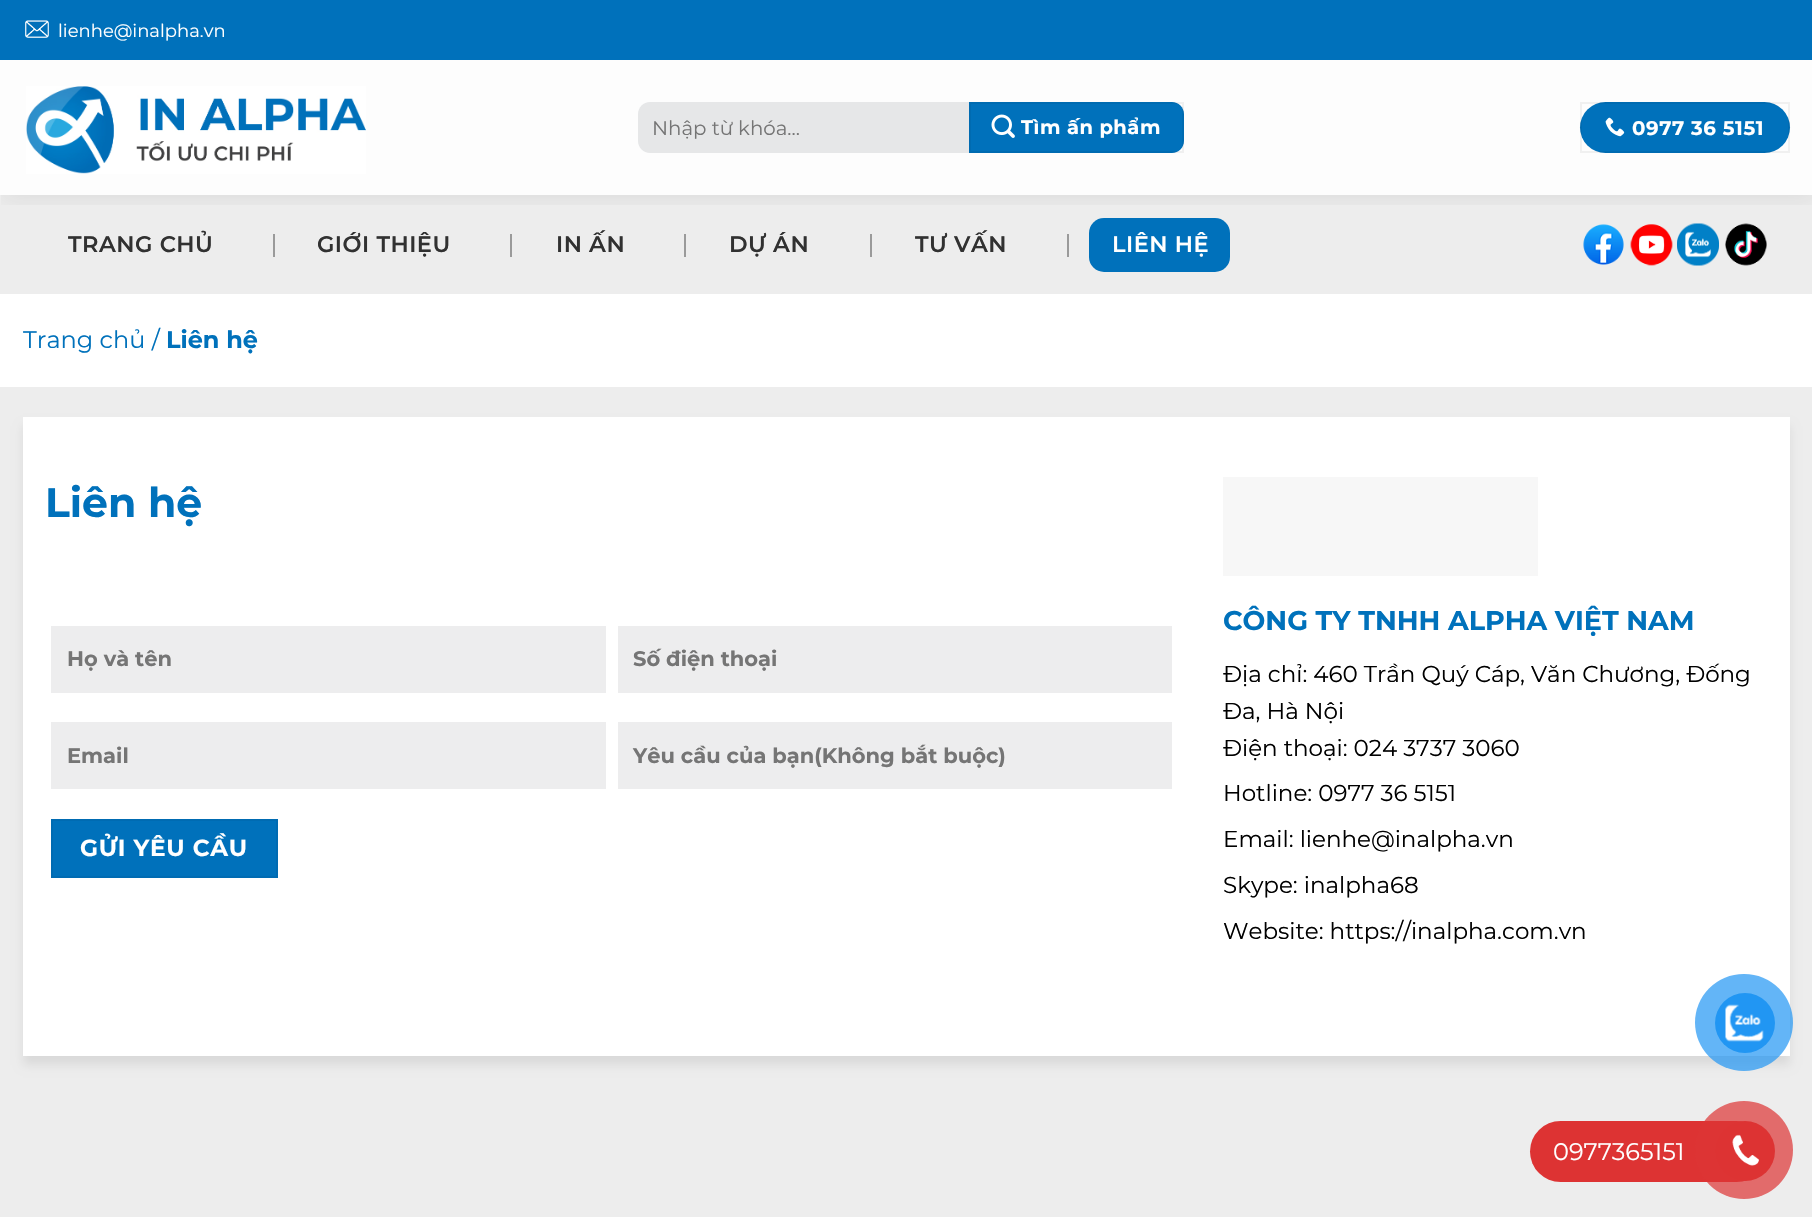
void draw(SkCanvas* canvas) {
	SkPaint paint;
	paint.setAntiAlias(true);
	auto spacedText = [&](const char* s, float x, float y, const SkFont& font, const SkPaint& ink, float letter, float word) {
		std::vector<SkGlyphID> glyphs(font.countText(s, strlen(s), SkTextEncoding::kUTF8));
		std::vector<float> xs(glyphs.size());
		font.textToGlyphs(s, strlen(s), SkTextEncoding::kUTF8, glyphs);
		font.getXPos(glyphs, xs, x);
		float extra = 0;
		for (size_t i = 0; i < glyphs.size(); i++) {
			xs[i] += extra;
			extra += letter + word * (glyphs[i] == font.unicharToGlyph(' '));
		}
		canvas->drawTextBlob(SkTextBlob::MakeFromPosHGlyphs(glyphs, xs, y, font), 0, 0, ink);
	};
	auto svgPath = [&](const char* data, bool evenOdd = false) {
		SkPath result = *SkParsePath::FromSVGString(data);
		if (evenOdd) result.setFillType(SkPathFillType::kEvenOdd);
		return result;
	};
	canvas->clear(0xffededed);
	paint.setColor(0xfffdfdfd);
	canvas->drawRect(SkRect::MakeXYWH(0, 60, 1812, 135), paint);
	paint.setColor(0xff0071bb);
	canvas->drawRoundRect(SkRect::MakeXYWH(1089, 218, 141, 54), 15, 15, paint);
	canvas->drawImageRect(SkImages::DeferredFromEncodedData(SkData::MakeFromFileName("img5.png")), SkRect::MakeXYWH(1583, 224, 41, 41), SkSamplingOptions());
	canvas->drawImageRect(SkImages::DeferredFromEncodedData(SkData::MakeFromFileName("img6.png")), SkRect::MakeXYWH(1630, 224, 43, 42), SkSamplingOptions());
	canvas->drawImageRect(SkImages::DeferredFromEncodedData(SkData::MakeFromFileName("img7.png")), SkRect::MakeXYWH(1677, 223, 42, 43), SkSamplingOptions());
	canvas->drawImageRect(SkImages::DeferredFromEncodedData(SkData::MakeFromFileName("img8.png")), SkRect::MakeXYWH(1725, 223, 42, 43), SkSamplingOptions());
	canvas->save();
	canvas->clipRect(SkRect::MakeXYWH(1, 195, 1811, 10));
	paint.setColor(0x14000000);
	paint.setMaskFilter(SkMaskFilter::MakeBlur(kNormal_SkBlurStyle, 11));
	canvas->drawRect(SkRect::MakeXYWH(3, 63, 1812, 135), paint);
	paint.setMaskFilter(nullptr);
	canvas->restore();
	paint.setColor(0xff0071bb);
	canvas->drawRect(SkRect::MakeXYWH(0, 0, 1812, 60), paint);
	canvas->drawImageRect(SkImages::DeferredFromEncodedData(SkData::MakeFromFileName("img1.png")), SkRect::MakeXYWH(25, 20, 24, 18), SkSamplingOptions());
	SkFont f1(fontMgr->matchFamilyStyle("Montserrat", SkFontStyle::Normal()), 18);
	f1.setSubpixel(true);
	paint.setColor(0xffffffff);
	canvas->drawString("lienhe@inalpha.vn", 58, 37, f1, paint);
	canvas->drawImageRect(SkImages::DeferredFromEncodedData(SkData::MakeFromFileName("img2.png")), SkRect::MakeXYWH(26, 86, 340, 88), SkSamplingOptions());
	paint.setColor(0xffe6e7e8);
	canvas->drawPath(svgPath("M650 102H969V153H650C643.5 153 638 147.5 638 141V114C638 107.5 643.5 102 650 102Z"), paint);
	SkFont f2(fontMgr->matchFamilyStyle("Montserrat", SkFontStyle::Normal()), 19.75);
	f2.setSubpixel(true);
	paint.setColor(0xff757575);
	canvas->drawString("Nhập từ khóa...", 652, 135, f2, paint);
	paint.setColor(0xff0071bb);
	canvas->drawPath(svgPath("M969 102H1172C1178.5 102 1184 107.5 1184 114V141C1184 147.5 1178.5 153 1172 153H969Z"), paint);
	paint.setStroke(true);
	paint.setStrokeWidth(2);
	paint.setColor(0x0d000000);
	canvas->drawRect(SkRect::MakeXYWH(970, 103, 213, 49), paint);
	canvas->drawImageRect(SkImages::DeferredFromEncodedData(SkData::MakeFromFileName("img3.png")), SkRect::MakeXYWH(991, 114, 24, 24), SkSamplingOptions());
	SkFont f3(fontMgr->matchFamilyStyle("Montserrat", SkFontStyle::Bold()), 19.5);
	f3.setSubpixel(true);
	paint.setStroke(false);
	paint.setColor(0xffffffff);
	spacedText("Tìm ấn phẩm", 1021, 134, f3, paint, 0.5, 0);
	paint.setColor(0xff0071bb);
	canvas->drawRoundRect(SkRect::MakeXYWH(1580, 102, 210, 51), 25.5, 25.5, paint);
	paint.setStroke(true);
	paint.setColor(0x0d000000);
	canvas->drawRect(SkRect::MakeXYWH(1581, 103, 208, 49), paint);
	canvas->drawImageRect(SkImages::DeferredFromEncodedData(SkData::MakeFromFileName("img4.png")), SkRect::MakeXYWH(1605, 117, 20, 20), SkSamplingOptions());
	SkFont f4(fontMgr->matchFamilyStyle("Montserrat", SkFontStyle::Bold()), 19.75);
	f4.setSubpixel(true);
	paint.setStroke(false);
	paint.setColor(0xffffffff);
	spacedText("0977 36 5151", 1632, 135, f4, paint, 0.6, 0);
	SkFont f5(fontMgr->matchFamilyStyle("Montserrat", SkFontStyle(600, SkFontStyle::kNormal_Width, SkFontStyle::kUpright_Slant)), 22.5);
	f5.setSubpixel(true);
	paint.setColor(0xff313131);
	spacedText("TRANG CHỦ", 68, 252, f5, paint, 0.5, 0);
	paint.setColor(0xff9a9a9a);
	canvas->drawRect(SkRect::MakeXYWH(273, 234, 2, 23), paint);
	paint.setColor(0xff313131);
	spacedText("GIỚI THIỆU", 317, 252, f5, paint, 0.5, 0);
	paint.setColor(0xff9a9a9a);
	canvas->drawRect(SkRect::MakeXYWH(510, 234, 2, 23), paint);
	paint.setColor(0xff313131);
	spacedText("IN ẤN", 556, 252, f5, paint, 0.5, 0);
	paint.setColor(0xff9a9a9a);
	canvas->drawRect(SkRect::MakeXYWH(684, 234, 2, 23), paint);
	paint.setColor(0xff313131);
	spacedText("DỰ ÁN", 729, 252, f5, paint, 0.5, 0);
	paint.setColor(0xff9a9a9a);
	canvas->drawRect(SkRect::MakeXYWH(870, 234, 2, 23), paint);
	paint.setColor(0xff313131);
	spacedText("TƯ VẤN", 915, 252, f5, paint, 0.5, 0);
	paint.setColor(0xff9a9a9a);
	canvas->drawRect(SkRect::MakeXYWH(1067, 234, 2, 23), paint);
	paint.setColor(0xffffffff);
	spacedText("LIÊN HỆ", 1112, 252, f5, paint, 0.5, 0);
	canvas->drawRect(SkRect::MakeXYWH(0, 294, 1812, 93), paint);
	SkFont f6(fontMgr->matchFamilyStyle("Montserrat", SkFontStyle::Normal()), 24);
	f6.setSubpixel(true);
	paint.setColor(0xff0071bb);
	canvas->drawString("Trang chủ /", 23, 348, f6, paint);
	SkFont f7(fontMgr->matchFamilyStyle("Montserrat", SkFontStyle::Bold()), 24);
	f7.setSubpixel(true);
	canvas->drawString("Liên hệ", 166, 348, f7, paint);
	paint.setColor(0x14000000);
	paint.setMaskFilter(SkMaskFilter::MakeBlur(kNormal_SkBlurStyle, 4.5));
	canvas->drawRect(SkRect::MakeXYWH(23, 426, 1767, 639), paint);
	paint.setMaskFilter(nullptr);
	paint.setColor(0xffffffff);
	canvas->drawRect(SkRect::MakeXYWH(23, 417, 1767, 639), paint);
	SkFont f8(fontMgr->matchFamilyStyle("Montserrat", SkFontStyle::Bold()), 41);
	f8.setSubpixel(true);
	paint.setColor(0xff0071bb);
	canvas->drawString("Liên hệ", 45, 517, f8, paint);
	paint.setColor(0xffededee);
	canvas->drawRect(SkRect::MakeXYWH(51, 626, 555, 67), paint);
	SkFont f9(fontMgr->matchFamilyStyle("Montserrat", SkFontStyle::Bold()), 21);
	f9.setSubpixel(true);
	paint.setColor(0xff757575);
	canvas->drawString("Họ và tên", 67, 666, f9, paint);
	paint.setColor(0xffededee);
	canvas->drawRect(SkRect::MakeXYWH(618, 626, 554, 67), paint);
	paint.setColor(0xff757575);
	canvas->drawString("Số điện thoại", 633, 666, f9, paint);
	paint.setColor(0xffededee);
	canvas->drawRect(SkRect::MakeXYWH(51, 722, 555, 67), paint);
	paint.setColor(0xff757575);
	canvas->drawString("Email", 67, 763, f9, paint);
	paint.setColor(0xffededee);
	canvas->drawRect(SkRect::MakeXYWH(618, 722, 554, 67), paint);
	paint.setColor(0xff757575);
	canvas->drawString("Yêu cầu của bạn(Không bắt buộc)", 633, 763, f9, paint);
	paint.setColor(0xff0071bb);
	canvas->drawRect(SkRect::MakeXYWH(52, 820, 225, 57), paint);
	paint.setStroke(true);
	paint.setColor(0xff006bb2);
	canvas->drawRect(SkRect::MakeXYWH(52, 820, 225, 57), paint);
	SkFont f10(fontMgr->matchFamilyStyle("Montserrat", SkFontStyle::Bold()), 23.25);
	f10.setSubpixel(true);
	paint.setStroke(false);
	paint.setColor(0xffffffff);
	spacedText("GỬI YÊU CẦU", 80, 856, f10, paint, 0.75, 0);
	paint.setColor(0xfff7f7f7);
	canvas->drawRect(SkRect::MakeXYWH(1223, 477, 315, 99), paint);
	SkFont f11(fontMgr->matchFamilyStyle("Montserrat", SkFontStyle::Bold()), 27);
	f11.setSubpixel(true);
	paint.setColor(0xff0071bb);
	canvas->drawString("CÔNG TY TNHH ALPHA VIỆT NAM", 1223, 630, f11, paint);
	SkFont f12(fontMgr->matchFamilyStyle("Montserrat", SkFontStyle::Normal()), 23);
	f12.setSubpixel(true);
	paint.setColor(0xff000000);
	canvas->drawString("Địa chỉ: 460 Trần Quý Cáp, Văn Chương, Đống", 1223, 682, f12, paint);
	canvas->drawString("Đa, Hà Nội", 1223, 719, f12, paint);
	canvas->drawString("Điện thoại: 024 3737 3060", 1223, 756, f12, paint);
	canvas->drawString("Hotline: 0977 36 5151", 1223, 801, f12, paint);
	canvas->drawString("Email: lienhe@inalpha.vn", 1223, 847, f12, paint);
	canvas->drawString("Skype: inalpha68", 1223, 893, f12, paint);
	canvas->drawString("Website: https://inalpha.com.vn", 1223, 939, f12, paint);
	paint.setColor(0xb32196f3);
	canvas->drawRoundRect(SkRect::MakeXYWH(1695, 974, 98, 97), 48.5, 48.5, paint);
	paint.setColor(0xff2196f3);
	canvas->drawCircle(1745, 1023, 30, paint);
	canvas->drawImageRect(SkImages::DeferredFromEncodedData(SkData::MakeFromFileName("img9.png")), SkRect::MakeXYWH(1725, 1004, 39, 38), SkSamplingOptions());
	paint.setColor(0xffdd3333);
	canvas->drawRoundRect(SkRect::MakeXYWH(1530, 1121, 237, 61), 30.5, 30.5, paint);
	paint.setColor(0xffffffff);
	canvas->drawString("0977365151", 1553, 1160, f6, paint);
	paint.setColor(0xb3dd3333);
	canvas->drawCircle(1744, 1150, 49, paint);
	paint.setColor(0xffdd3333);
	canvas->drawCircle(1745, 1151, 30, paint);
	canvas->drawImageRect(SkImages::DeferredFromEncodedData(SkData::MakeFromFileName("img10.png")), SkRect::MakeXYWH(1732, 1134, 27, 32), SkSamplingOptions());
}
